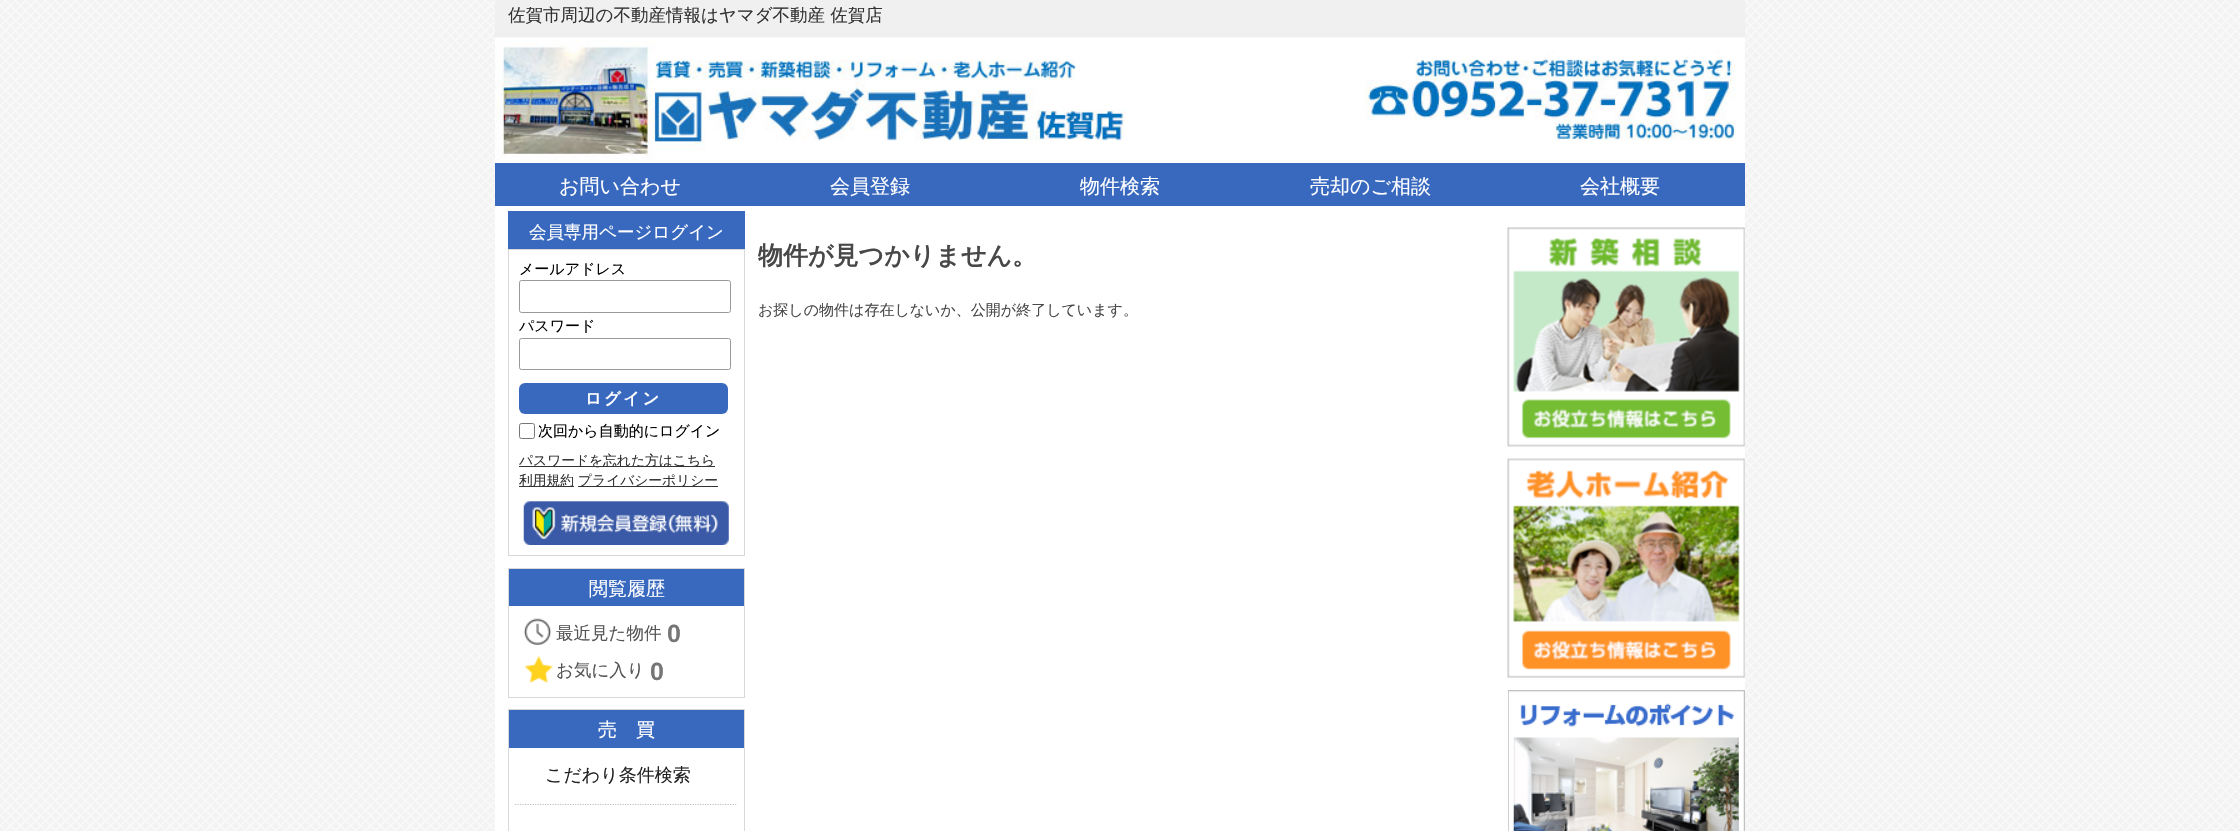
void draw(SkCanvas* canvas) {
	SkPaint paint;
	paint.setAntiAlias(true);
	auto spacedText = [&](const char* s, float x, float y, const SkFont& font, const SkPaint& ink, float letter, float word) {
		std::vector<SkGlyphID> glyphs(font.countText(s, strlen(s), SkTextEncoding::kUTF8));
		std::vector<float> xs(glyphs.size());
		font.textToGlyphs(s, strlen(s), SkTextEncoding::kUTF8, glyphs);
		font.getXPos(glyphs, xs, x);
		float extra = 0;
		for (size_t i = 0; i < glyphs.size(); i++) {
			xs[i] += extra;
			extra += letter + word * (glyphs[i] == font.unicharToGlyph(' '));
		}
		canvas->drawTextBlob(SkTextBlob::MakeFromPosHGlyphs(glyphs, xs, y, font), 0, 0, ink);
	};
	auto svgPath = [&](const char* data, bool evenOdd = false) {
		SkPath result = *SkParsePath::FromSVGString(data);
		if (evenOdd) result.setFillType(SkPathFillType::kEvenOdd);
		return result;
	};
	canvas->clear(0xffffffff);
	canvas->drawImageRect(SkImages::DeferredFromEncodedData(SkData::MakeFromFileName("img1.png")), SkRect::MakeXYWH(0, 0, 2240, 831), SkSamplingOptions());
	paint.setColor(0xffffffff);
	canvas->drawRect(SkRect::MakeXYWH(495, 160, 1250, 671), paint);
	canvas->drawImageRect(SkImages::DeferredFromEncodedData(SkData::MakeFromFileName("img2.png")), SkRect::MakeXYWH(495, 0, 1250, 160), SkSamplingOptions());
	SkFont f1(fontMgr->matchFamilyStyle("WenQuanYi Zen Hei", SkFontStyle(500, SkFontStyle::kNormal_Width, SkFontStyle::kUpright_Slant)), 17.5);
	f1.setSubpixel(true);
	paint.setColor(0xff333333);
	canvas->drawString("佐賀市周辺の不動産情報はヤマダ不動産 佐賀店", 508, 21, f1, paint);
	paint.setColor(0xff3969bf);
	canvas->drawRect(SkRect::MakeXYWH(495, 163, 1250, 43), paint);
	SkFont f2(fontMgr->matchFamilyStyle("WenQuanYi Zen Hei", SkFontStyle(500, SkFontStyle::kNormal_Width, SkFontStyle::kUpright_Slant)), 20);
	f2.setSubpixel(true);
	paint.setColor(0xffffffff);
	canvas->drawString("お問い合わせ", 559, 193, f2, paint);
	canvas->drawString("会員登録", 830, 193, f2, paint);
	canvas->drawString("物件検索", 1080, 193, f2, paint);
	canvas->drawString("売却のご相談", 1310, 193, f2, paint);
	canvas->drawString("会社概要", 1580, 193, f2, paint);
	paint.setColor(0xff3969bf);
	canvas->drawRect(SkRect::MakeXYWH(508, 211, 237, 38), paint);
	paint.setColor(0xffffffff);
	canvas->drawString("会員専用ページログイン", 529, 238, f1, paint);
	paint.setStroke(true);
	paint.setStrokeWidth(1);
	paint.setColor(0xffd8d8d8);
	canvas->drawRect(SkRect::MakeXYWH(508.5, 249.5, 236, 306), paint);
	SkFont f3(fontMgr->matchFamilyStyle("WenQuanYi Zen Hei", SkFontStyle(500, SkFontStyle::kNormal_Width, SkFontStyle::kUpright_Slant)), 15);
	f3.setSubpixel(true);
	paint.setStroke(false);
	paint.setColor(0xff000000);
	canvas->drawString("メールアドレス", 519, 274, f3, paint);
	paint.setStroke(true);
	paint.setColor(0xff999999);
	canvas->drawRoundRect(SkRect::MakeXYWH(519.5, 280.5, 211, 32), 2, 2, paint);
	paint.setStroke(false);
	paint.setColor(0xff000000);
	canvas->drawString("パスワード", 519, 331, f3, paint);
	paint.setStroke(true);
	paint.setColor(0xff999999);
	canvas->drawRoundRect(SkRect::MakeXYWH(519.5, 338.5, 211, 31), 2, 2, paint);
	paint.setStroke(false);
	paint.setColor(0xff3969bf);
	canvas->drawRoundRect(SkRect::MakeXYWH(519, 383, 209, 31), 6, 6, paint);
	SkFont f4(fontMgr->matchFamilyStyle("WenQuanYi Zen Hei", SkFontStyle::Bold()), 16.25);
	f4.setSubpixel(true);
	paint.setColor(0xffffffff);
	spacedText("ログイン", 585, 404, f4, paint, 2.5, 0);
	paint.setStroke(true);
	paint.setColor(0xff767676);
	canvas->drawRoundRect(SkRect::MakeXYWH(519.5, 423.5, 15, 15), 2, 2, paint);
	paint.setStroke(false);
	paint.setColor(0xff000000);
	canvas->drawString("次回から自動的にログイン", 538, 436, f3, paint);
	paint.setColor(0xff333333);
	canvas->drawRect(SkRect::MakeXYWH(519, 466, 196, 1), paint);
	SkFont f5(fontMgr->matchFamilyStyle("WenQuanYi Zen Hei", SkFontStyle(500, SkFontStyle::kNormal_Width, SkFontStyle::kUpright_Slant)), 13.75);
	f5.setSubpixel(true);
	canvas->drawString("パスワードを忘れた方はこちら", 519, 465, f5, paint);
	canvas->drawRect(SkRect::MakeXYWH(519, 486, 55, 1), paint);
	canvas->drawString("利用規約", 519, 485, f5, paint);
	canvas->drawRect(SkRect::MakeXYWH(578, 486, 140, 1), paint);
	canvas->drawString("プライバシーポリシー", 578, 485, f5, paint);
	canvas->drawImageRect(SkImages::DeferredFromEncodedData(SkData::MakeFromFileName("img3.png")), SkRect::MakeXYWH(523, 501, 206, 44), SkSamplingOptions());
	paint.setStroke(true);
	paint.setColor(0xffd8d8d8);
	canvas->drawRect(SkRect::MakeXYWH(508.5, 568.5, 236, 129), paint);
	paint.setStroke(false);
	paint.setColor(0xff3969bf);
	canvas->drawRect(SkRect::MakeXYWH(509, 569, 235, 37), paint);
	SkFont f6(fontMgr->matchFamilyStyle("WenQuanYi Zen Hei", SkFontStyle(500, SkFontStyle::kNormal_Width, SkFontStyle::kUpright_Slant)), 19);
	f6.setSubpixel(true);
	paint.setColor(0xffffffff);
	canvas->drawString("閲覧履歴", 589, 595, f6, paint);
	canvas->drawImageRect(SkImages::DeferredFromEncodedData(SkData::MakeFromFileName("img4.png")), SkRect::MakeXYWH(523, 618, 29, 27), SkSamplingOptions());
	paint.setColor(0xff545454);
	canvas->drawString("最近見た物件", 556, 639, f1, paint);
	SkFont f7(fontMgr->matchFamilyStyle("Liberation Sans", SkFontStyle::Bold()), 25);
	f7.setSubpixel(true);
	paint.setColor(0xff767676);
	canvas->drawString("0", 667, 642, f7, paint);
	canvas->drawImageRect(SkImages::DeferredFromEncodedData(SkData::MakeFromFileName("img5.png")), SkRect::MakeXYWH(524, 656, 29, 27), SkSamplingOptions());
	paint.setColor(0xff545454);
	canvas->drawString("お気に入り", 556, 676, f1, paint);
	paint.setColor(0xff767676);
	canvas->drawString("0", 650, 680, f7, paint);
	paint.setStroke(true);
	paint.setColor(0xffd8d8d8);
	canvas->drawRect(SkRect::MakeXYWH(508.5, 709.5, 236, 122), paint);
	paint.setStroke(false);
	paint.setColor(0xff3969bf);
	canvas->drawRect(SkRect::MakeXYWH(509, 710, 235, 38), paint);
	paint.setColor(0xffffffff);
	spacedText("売買", 598, 736, f6, paint, 19, 0);
	paint.setStroke(true);
	paint.setStrokeWidth(1.2);
	paint.setColor(0xffbfbfbf);
	paint.setPathEffect(SkDashPathEffect::Make({{1.25f, 1.25f}}, 0));
	canvas->drawPath(svgPath("M515 804.5H737.5"), paint);
	paint.setPathEffect(nullptr);
	SkFont f8(fontMgr->matchFamilyStyle("WenQuanYi Zen Hei", SkFontStyle(500, SkFontStyle::kNormal_Width, SkFontStyle::kUpright_Slant)), 18);
	f8.setSubpixel(true);
	paint.setStroke(false);
	paint.setColor(0xff222222);
	canvas->drawString("こだわり条件検索", 545, 781, f8, paint);
	SkFont f9(fontMgr->matchFamilyStyle("WenQuanYi Zen Hei", SkFontStyle::Bold()), 25);
	f9.setSubpixel(true);
	paint.setColor(0xff484848);
	canvas->drawString("物件が見つかりません。", 758, 264, f9, paint);
	canvas->drawString("お探しの物件は存在しないか、公開が終了しています。", 758, 315, f3, paint);
	canvas->drawImageRect(SkImages::DeferredFromEncodedData(SkData::MakeFromFileName("img6.png")), SkRect::MakeXYWH(1507, 227, 238, 220), SkSamplingOptions());
	canvas->drawImageRect(SkImages::DeferredFromEncodedData(SkData::MakeFromFileName("img7.png")), SkRect::MakeXYWH(1507, 458, 238, 220), SkSamplingOptions());
	canvas->drawImageRect(SkImages::DeferredFromEncodedData(SkData::MakeFromFileName("img8.png")), SkRect::MakeXYWH(1508, 690, 237, 141), SkSamplingOptions());
}
